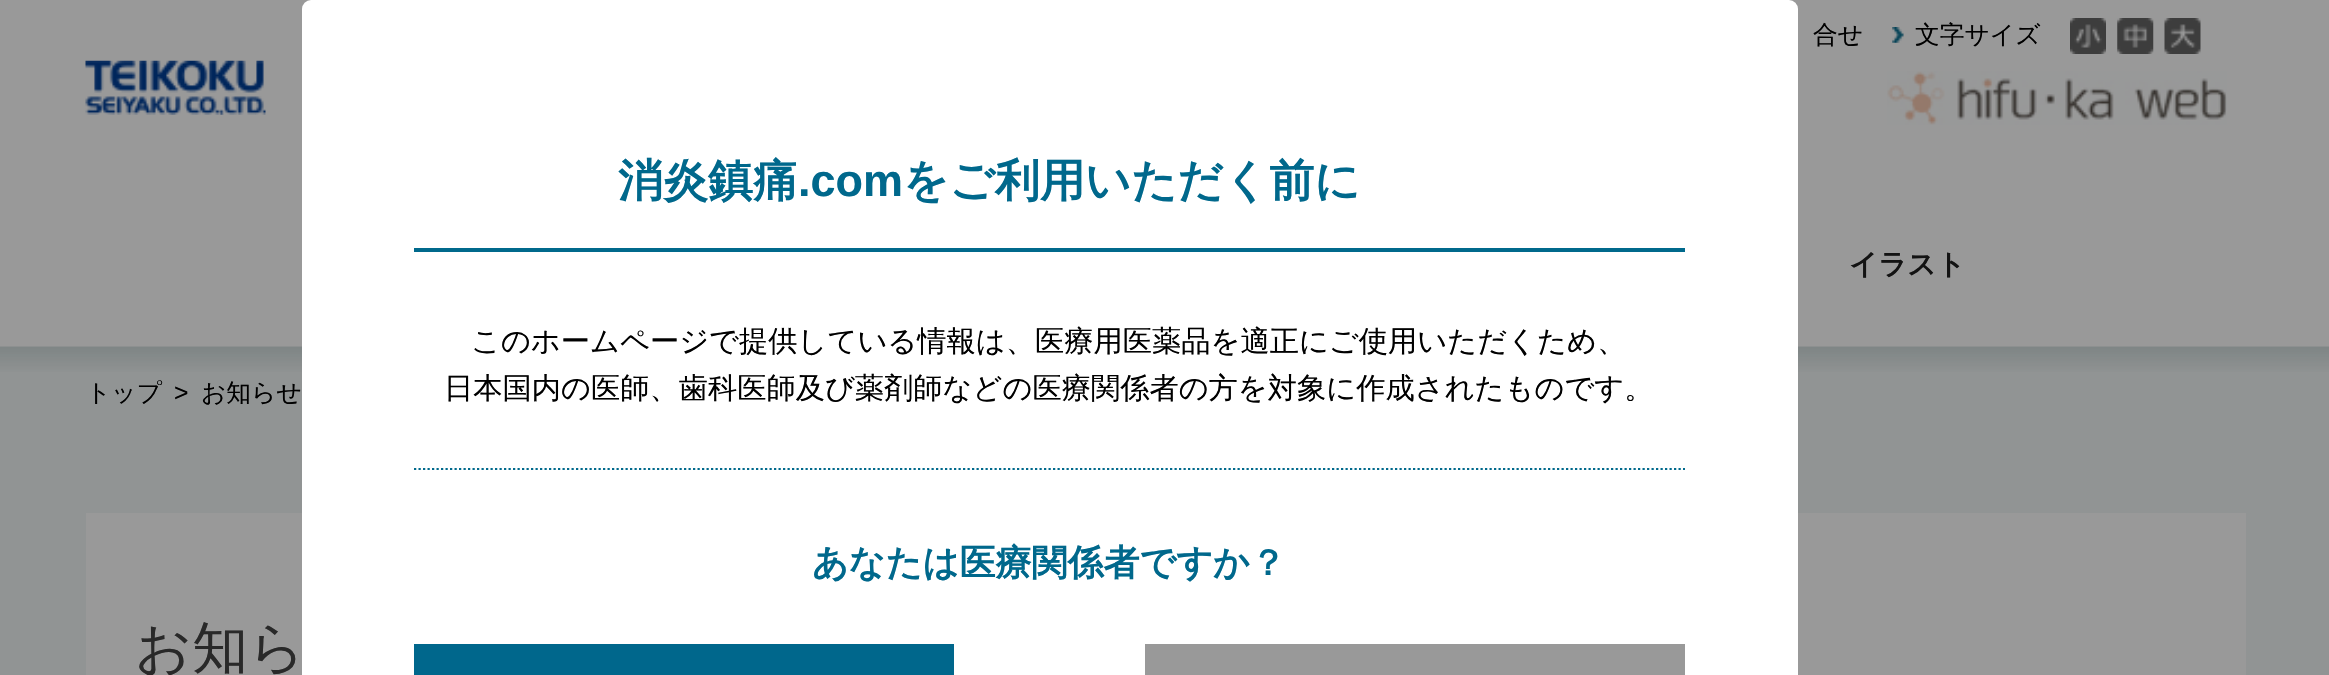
void draw(SkCanvas* canvas) {
	SkPaint paint;
	paint.setAntiAlias(true);
	auto svgPath = [&](const char* data, bool evenOdd = false) {
		SkPath result = *SkParsePath::FromSVGString(data);
		if (evenOdd) result.setFillType(SkPathFillType::kEvenOdd);
		return result;
	};
	canvas->clear(0xff999999);
	SkFont f1(fontMgr->matchFamilyStyle("WenQuanYi Zen Hei", SkFontStyle(500, SkFontStyle::kNormal_Width, SkFontStyle::kUpright_Slant)), 24.75);
	f1.setSubpixel(true);
	paint.setColor(0xff000000);
	canvas->drawString("合せ", 1813, 43, f1, paint);
	canvas->drawImageRect(SkImages::DeferredFromEncodedData(SkData::MakeFromFileName("img1.png")), SkRect::MakeXYWH(1892, 27, 12, 16), SkSamplingOptions());
	canvas->drawString("文字サイズ", 1915, 43, f1, paint);
	canvas->drawImageRect(SkImages::DeferredFromEncodedData(SkData::MakeFromFileName("img2.png")), SkRect::MakeXYWH(2070, 18, 36, 36), SkSamplingOptions());
	canvas->drawImageRect(SkImages::DeferredFromEncodedData(SkData::MakeFromFileName("img3.png")), SkRect::MakeXYWH(2117, 18, 37, 36), SkSamplingOptions());
	canvas->drawImageRect(SkImages::DeferredFromEncodedData(SkData::MakeFromFileName("img4.png")), SkRect::MakeXYWH(2164, 18, 37, 36), SkSamplingOptions());
	canvas->drawImageRect(SkImages::DeferredFromEncodedData(SkData::MakeFromFileName("img5.png")), SkRect::MakeXYWH(85, 60, 181, 55), SkSamplingOptions());
	canvas->drawImageRect(SkImages::DeferredFromEncodedData(SkData::MakeFromFileName("img6.png")), SkRect::MakeXYWH(1887, 71, 340, 54), SkSamplingOptions());
	SkFont f2(fontMgr->matchFamilyStyle("WenQuanYi Zen Hei", SkFontStyle::Bold()), 28.5);
	f2.setSubpixel(true);
	paint.setColor(0xff131313);
	canvas->drawString("イラスト", 1849, 274, f2, paint);
	paint.setColor(0xff919494);
	canvas->drawRect(SkRect::MakeXYWH(0, 347, 2329, 328), paint);
	canvas->drawImageRect(SkImages::DeferredFromEncodedData(SkData::MakeFromFileName("img7.png")), SkRect::MakeXYWH(0, 346, 2329, 26), SkSamplingOptions());
	paint.setColor(0xff000000);
	canvas->drawString("トップ", 86, 401, f1, paint);
	SkFont f3(fontMgr->matchFamilyStyle("Liberation Sans", SkFontStyle::Normal()), 24.75);
	f3.setSubpixel(true);
	canvas->drawString(">", 174, 401, f3, paint);
	canvas->drawString("お知らせ", 201, 401, f1, paint);
	paint.setColor(0xff999999);
	canvas->drawRect(SkRect::MakeXYWH(86, 513, 2160, 162), paint);
	SkFont f4(fontMgr->matchFamilyStyle("WenQuanYi Zen Hei", SkFontStyle(500, SkFontStyle::kNormal_Width, SkFontStyle::kUpright_Slant)), 56);
	f4.setSubpixel(true);
	paint.setColor(0xff292929);
	canvas->drawString("お知ら", 135, 667, f4, paint);
	paint.setColor(0xffffffff);
	canvas->drawRoundRect(SkRect::MakeXYWH(302, 0, 1496, 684), 9, 9, paint);
	paint.setColor(0xff00698c);
	canvas->drawRect(SkRect::MakeXYWH(414, 248, 1271, 4), paint);
	SkFont f5(fontMgr->matchFamilyStyle("WenQuanYi Zen Hei", SkFontStyle::Bold()), 45);
	f5.setSubpixel(true);
	paint.setColor(0xff00688c);
	canvas->drawString("消炎鎮痛", 618, 196, f5, paint);
	SkFont f6(fontMgr->matchFamilyStyle("Liberation Sans", SkFontStyle::Bold()), 45);
	f6.setSubpixel(true);
	canvas->drawString(".com", 798, 196, f6, paint);
	canvas->drawString("をご利用いただく前に", 903, 196, f5, paint);
	SkFont f7(fontMgr->matchFamilyStyle("WenQuanYi Zen Hei", SkFontStyle(500, SkFontStyle::kNormal_Width, SkFontStyle::kUpright_Slant)), 29.25);
	f7.setSubpixel(true);
	paint.setColor(0xff000000);
	canvas->drawString("このホームページで提供している情報は、医療用医薬品を適正にご使用いただくため、", 471, 351, f7, paint);
	canvas->drawString("日本国内の医師、歯科医師及び薬剤師などの医療関係者の方を対象に作成されたものです。", 444, 398, f7, paint);
	paint.setStroke(true);
	paint.setStrokeWidth(2.2);
	paint.setColor(0xff00698c);
	paint.setPathEffect(SkDashPathEffect::Make({{2.25f, 2.25f}}, 0));
	canvas->drawPath(svgPath("M414 469H1685"), paint);
	paint.setPathEffect(nullptr);
	SkFont f8(fontMgr->matchFamilyStyle("WenQuanYi Zen Hei", SkFontStyle::Bold()), 36);
	f8.setSubpixel(true);
	paint.setStroke(false);
	paint.setColor(0xff00688c);
	canvas->drawString("あなたは医療関係者ですか？", 812, 575, f8, paint);
	paint.setColor(0xff00678c);
	canvas->drawRect(SkRect::MakeXYWH(414, 644, 540, 31), paint);
	paint.setColor(0xff999999);
	canvas->drawRect(SkRect::MakeXYWH(1145, 644, 540, 31), paint);
}
